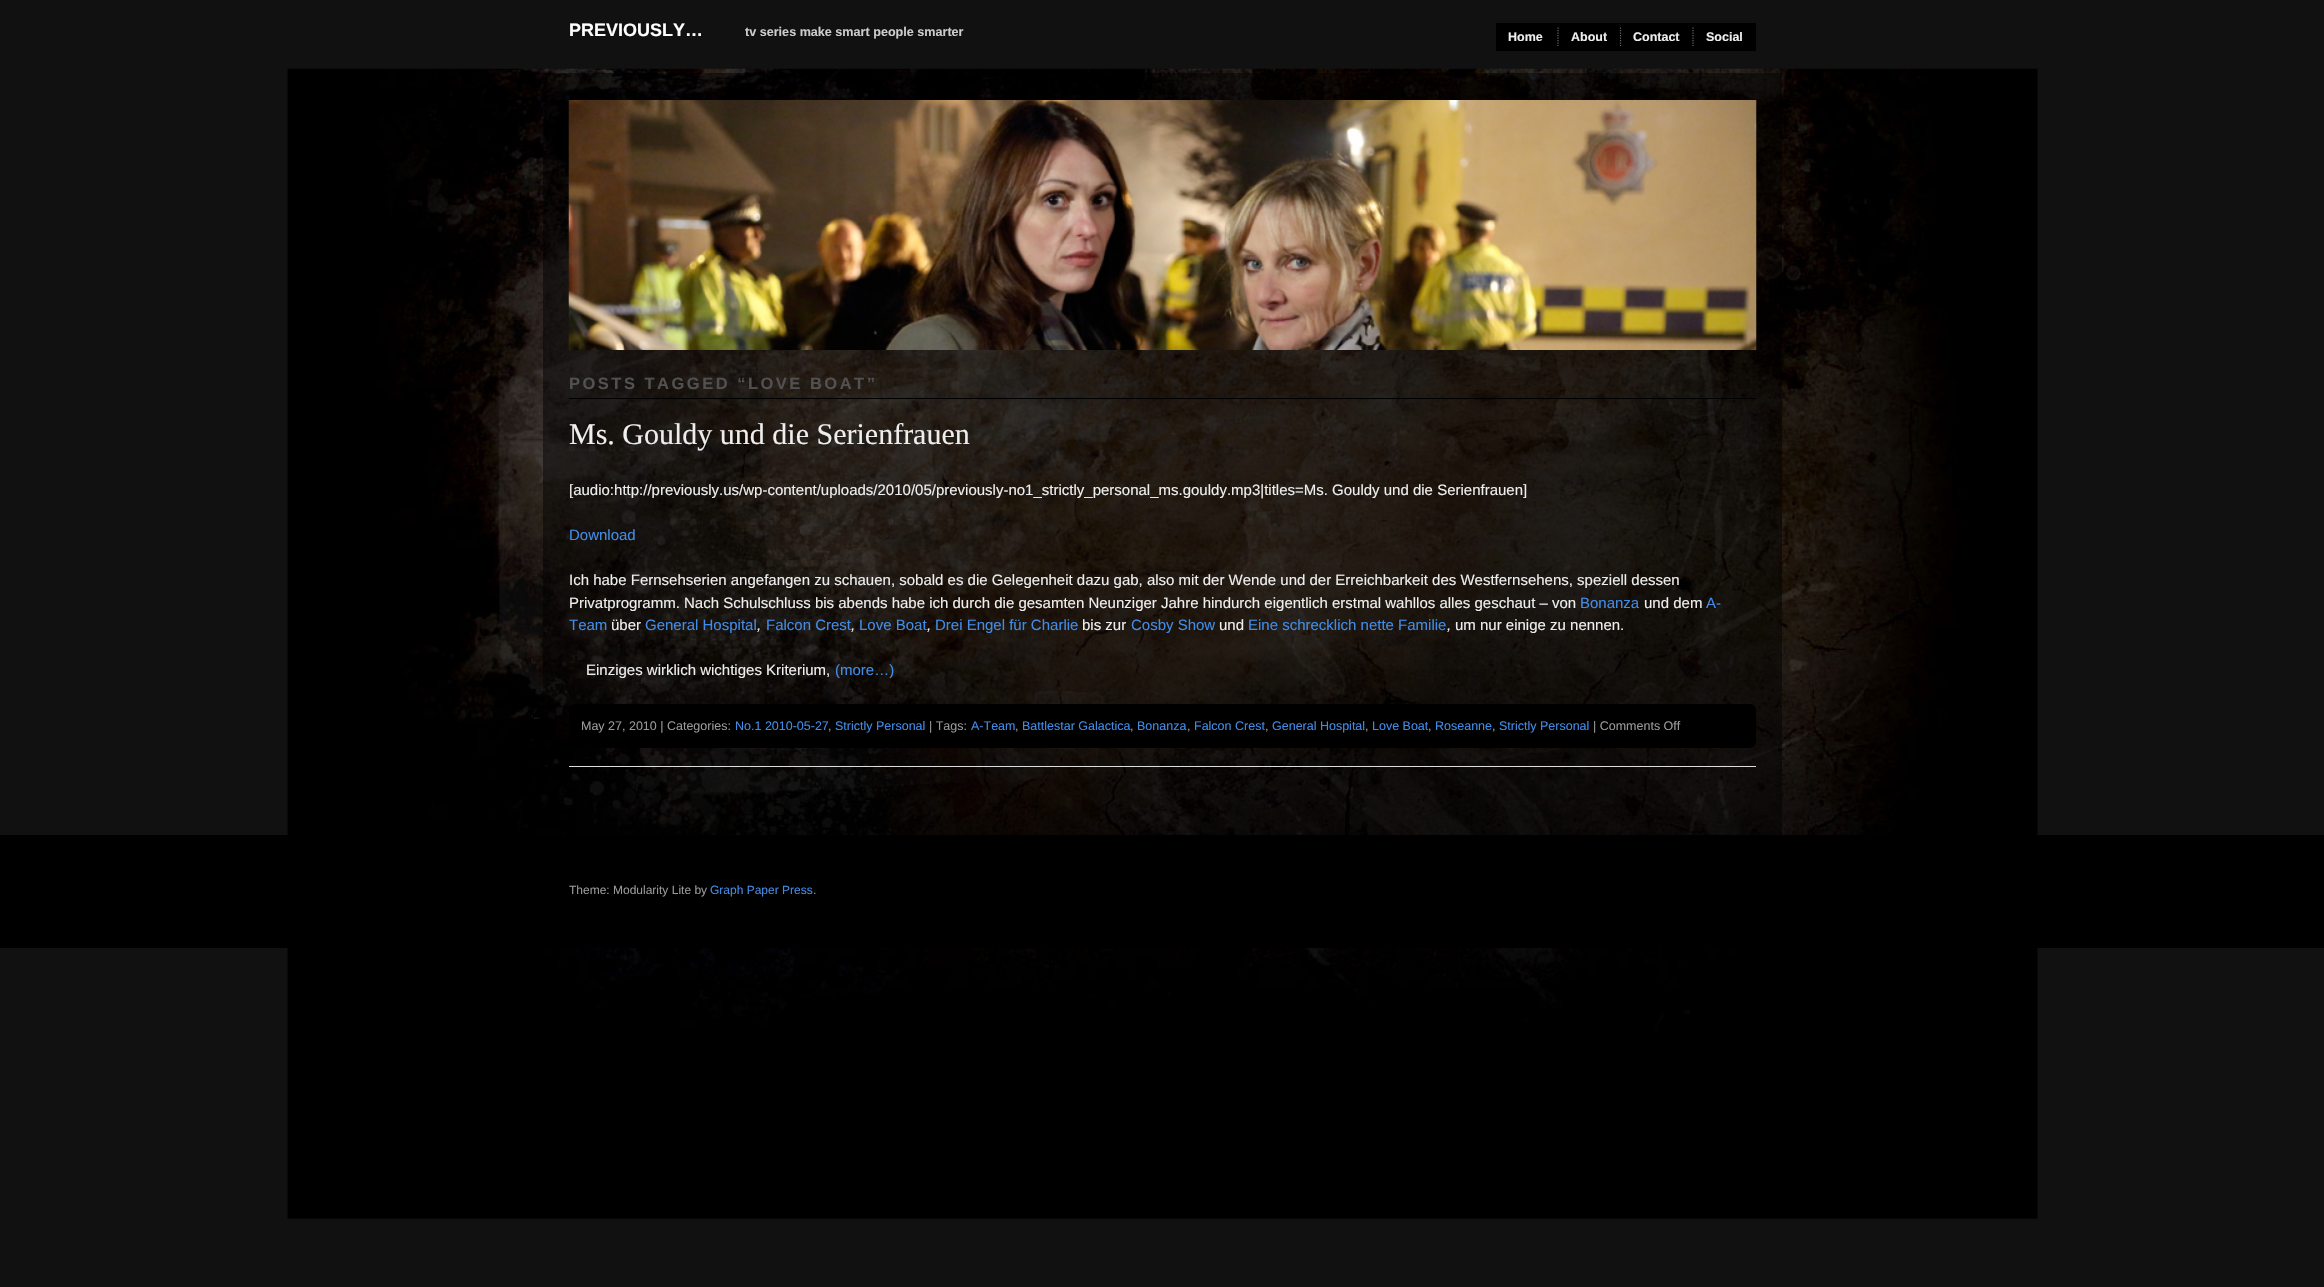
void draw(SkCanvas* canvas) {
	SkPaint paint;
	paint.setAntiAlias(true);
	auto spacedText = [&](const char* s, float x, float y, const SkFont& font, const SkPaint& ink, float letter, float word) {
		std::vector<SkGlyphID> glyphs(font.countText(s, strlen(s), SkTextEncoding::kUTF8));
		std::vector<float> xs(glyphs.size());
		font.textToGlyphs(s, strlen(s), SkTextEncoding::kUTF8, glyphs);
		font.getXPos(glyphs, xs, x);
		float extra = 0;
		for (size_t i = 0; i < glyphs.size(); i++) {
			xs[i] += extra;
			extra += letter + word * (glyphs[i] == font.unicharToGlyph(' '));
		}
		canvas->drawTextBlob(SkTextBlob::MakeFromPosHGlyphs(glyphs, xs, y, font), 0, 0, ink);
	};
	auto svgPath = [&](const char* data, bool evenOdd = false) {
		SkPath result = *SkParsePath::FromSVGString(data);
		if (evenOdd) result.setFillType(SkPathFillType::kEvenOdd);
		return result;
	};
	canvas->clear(0xff111111);
	canvas->drawImageRect(SkImages::DeferredFromEncodedData(SkData::MakeFromFileName("img1.png")), SkRect::MakeXYWH(287, 68, 1751, 1151), SkSamplingOptions());
	SkFont f1(fontMgr->matchFamilyStyle("Liberation Sans", SkFontStyle::Bold()), 18);
	f1.setSubpixel(true);
	paint.setColor(0xffffffff);
	canvas->drawString("PREVIOUSLY…", 569, 36, f1, paint);
	SkFont f2(fontMgr->matchFamilyStyle("Liberation Sans", SkFontStyle::Bold()), 12.6);
	f2.setSubpixel(true);
	paint.setColor(0xffcccccc);
	canvas->drawString("tv series make smart people smarter", 745, 36, f2, paint);
	paint.setColor(0xff000000);
	canvas->drawRect(SkRect::MakeXYWH(1496, 23, 260, 28), paint);
	paint.setStroke(true);
	paint.setStrokeWidth(1.2);
	paint.setColor(0xff666666);
	paint.setPathEffect(SkDashPathEffect::Make({{1.25f, 1.25f}}, 0));
	canvas->drawPath(svgPath("M1558 27.5V46"), paint);
	paint.setPathEffect(nullptr);
	SkFont f3(fontMgr->matchFamilyStyle("Liberation Sans", SkFontStyle::Bold()), 12.5);
	f3.setSubpixel(true);
	paint.setStroke(false);
	paint.setColor(0xffeeeeee);
	canvas->drawString("Home", 1508, 41, f3, paint);
	paint.setStroke(true);
	paint.setColor(0xff666666);
	paint.setPathEffect(SkDashPathEffect::Make({{1.25f, 1.25f}}, 0));
	canvas->drawPath(svgPath("M1620.5 27.5V46"), paint);
	paint.setPathEffect(nullptr);
	paint.setStroke(false);
	paint.setColor(0xffeeeeee);
	canvas->drawString("About", 1571, 41, f3, paint);
	paint.setStroke(true);
	paint.setColor(0xff666666);
	paint.setPathEffect(SkDashPathEffect::Make({{1.25f, 1.25f}}, 0));
	canvas->drawPath(svgPath("M1693 27.5V46"), paint);
	paint.setPathEffect(nullptr);
	paint.setStroke(false);
	paint.setColor(0xffeeeeee);
	canvas->drawString("Contact", 1633, 41, f3, paint);
	canvas->drawString("Social", 1706, 41, f3, paint);
	paint.setColor(0x80000000);
	canvas->drawRect(SkRect::MakeXYWH(543, 73, 1239, 762), paint);
	canvas->drawImageRect(SkImages::DeferredFromEncodedData(SkData::MakeFromFileName("img2.png")), SkRect::MakeXYWH(568, 100, 1189, 250), SkSamplingOptions());
	paint.setColor(0xff000000);
	canvas->drawRect(SkRect::MakeXYWH(569, 398, 1187, 1), paint);
	SkFont f4(fontMgr->matchFamilyStyle("Liberation Sans", SkFontStyle::Bold()), 16.5);
	f4.setSubpixel(true);
	paint.setColor(0xff515151);
	spacedText("POSTS TAGGED “LOVE BOAT”", 569, 389, f4, paint, 2.5, 0);
	SkFont f5(fontMgr->matchFamilyStyle("Liberation Serif", SkFontStyle::Normal()), 30);
	f5.setSubpixel(true);
	paint.setColor(0xffeeeeee);
	canvas->drawString("Ms. Gouldy und die Serienfrauen", 569, 444, f5, paint);
	SkFont f6(fontMgr->matchFamilyStyle("Liberation Sans", SkFontStyle::Normal()), 15);
	f6.setSubpixel(true);
	canvas->drawString("[audio:http://previously.us/wp-content/uploads/2010/05/previously-no1_strictly_personal_ms.gouldy.mp3|titles=Ms. Gouldy und die Serienfrauen]", 569, 495, f6, paint);
	paint.setColor(0xff428ce7);
	canvas->drawString("Download", 569, 540, f6, paint);
	paint.setColor(0xffeeeeee);
	canvas->drawString("Ich habe Fernsehserien angefangen zu schauen, sobald es die Gelegenheit dazu gab, also mit der Wende und der Erreichbarkeit des Westfernsehens, speziell dessen", 569, 585, f6, paint);
	canvas->drawString("Privatprogramm. Nach Schulschluss bis abends habe ich durch die gesamten Neunziger Jahre hindurch eigentlich erstmal wahllos alles geschaut – von", 569, 608, f6, paint);
	paint.setColor(0xff428ce7);
	canvas->drawString("Bonanza", 1580, 608, f6, paint);
	paint.setColor(0xffeeeeee);
	canvas->drawString("und dem", 1644, 608, f6, paint);
	paint.setColor(0xff428ce7);
	canvas->drawString("A-", 1706, 608, f6, paint);
	canvas->drawString("Team", 569, 630, f6, paint);
	paint.setColor(0xffeeeeee);
	canvas->drawString("über", 611, 630, f6, paint);
	paint.setColor(0xff428ce7);
	canvas->drawString("General Hospital", 645, 630, f6, paint);
	SkFont f7(fontMgr->matchFamilyStyle("Liberation Sans", SkFontStyle::Italic()), 15);
	f7.setSubpixel(true);
	paint.setColor(0xffeeeeee);
	canvas->drawString(",", 757, 630, f7, paint);
	paint.setColor(0xff428ce7);
	canvas->drawString("Falcon Crest", 766, 630, f6, paint);
	paint.setColor(0xffeeeeee);
	canvas->drawString(",", 851, 630, f7, paint);
	paint.setColor(0xff428ce7);
	canvas->drawString("Love Boat", 859, 630, f6, paint);
	paint.setColor(0xffeeeeee);
	canvas->drawString(",", 927, 630, f7, paint);
	paint.setColor(0xff428ce7);
	canvas->drawString("Drei Engel für Charlie", 935, 630, f6, paint);
	paint.setColor(0xffeeeeee);
	canvas->drawString("bis zur", 1082, 630, f6, paint);
	paint.setColor(0xff428ce7);
	canvas->drawString("Cosby Show", 1131, 630, f6, paint);
	paint.setColor(0xffeeeeee);
	canvas->drawString("und", 1219, 630, f6, paint);
	paint.setColor(0xff428ce7);
	canvas->drawString("Eine schrecklich nette Familie", 1248, 630, f6, paint);
	paint.setColor(0xffeeeeee);
	canvas->drawString(",", 1447, 630, f7, paint);
	canvas->drawString("um nur einige zu nennen.", 1455, 630, f6, paint);
	canvas->drawString("Einziges wirklich wichtiges Kriterium,", 586, 675, f6, paint);
	paint.setColor(0xff428ce7);
	canvas->drawString("(more…)", 835, 675, f6, paint);
	paint.setColor(0xff000000);
	canvas->drawRoundRect(SkRect::MakeXYWH(569, 704, 1187, 44), 6, 6, paint);
	SkFont f8(fontMgr->matchFamilyStyle("Liberation Sans", SkFontStyle::Normal()), 12.5);
	f8.setSubpixel(true);
	paint.setColor(0xff999999);
	canvas->drawString("May 27, 2010 | Categories:", 581, 730, f8, paint);
	paint.setColor(0xff428ce7);
	canvas->drawString("No.1 2010-05-27", 735, 730, f8, paint);
	paint.setColor(0xff999999);
	canvas->drawString(",", 828, 730, f8, paint);
	paint.setColor(0xff428ce7);
	canvas->drawString("Strictly Personal", 835, 730, f8, paint);
	paint.setColor(0xff999999);
	canvas->drawString("| Tags:", 929, 730, f8, paint);
	paint.setColor(0xff428ce7);
	canvas->drawString("A-Team", 971, 730, f8, paint);
	paint.setColor(0xff999999);
	canvas->drawString(",", 1015, 730, f8, paint);
	paint.setColor(0xff428ce7);
	canvas->drawString("Battlestar Galactica", 1022, 730, f8, paint);
	paint.setColor(0xff999999);
	canvas->drawString(",", 1130, 730, f8, paint);
	paint.setColor(0xff428ce7);
	canvas->drawString("Bonanza", 1137, 730, f8, paint);
	paint.setColor(0xff999999);
	canvas->drawString(",", 1187, 730, f8, paint);
	paint.setColor(0xff428ce7);
	canvas->drawString("Falcon Crest", 1194, 730, f8, paint);
	paint.setColor(0xff999999);
	canvas->drawString(",", 1265, 730, f8, paint);
	paint.setColor(0xff428ce7);
	canvas->drawString("General Hospital", 1272, 730, f8, paint);
	paint.setColor(0xff999999);
	canvas->drawString(",", 1365, 730, f8, paint);
	paint.setColor(0xff428ce7);
	canvas->drawString("Love Boat", 1372, 730, f8, paint);
	paint.setColor(0xff999999);
	canvas->drawString(",", 1428, 730, f8, paint);
	paint.setColor(0xff428ce7);
	canvas->drawString("Roseanne", 1435, 730, f8, paint);
	paint.setColor(0xff999999);
	canvas->drawString(",", 1492, 730, f8, paint);
	paint.setColor(0xff428ce7);
	canvas->drawString("Strictly Personal", 1499, 730, f8, paint);
	paint.setColor(0xff999999);
	canvas->drawString("| Comments Off", 1593, 730, f8, paint);
	paint.setColor(0xffdddddd);
	canvas->drawRect(SkRect::MakeXYWH(569, 766, 1187, 1), paint);
	paint.setColor(0xff000000);
	canvas->drawRect(SkRect::MakeXYWH(0, 835, 2324, 113), paint);
	SkFont f9(fontMgr->matchFamilyStyle("Liberation Sans", SkFontStyle::Normal()), 12);
	f9.setSubpixel(true);
	paint.setColor(0xff999999);
	canvas->drawString("Theme: Modularity Lite by", 569, 894, f9, paint);
	paint.setColor(0xff428ce7);
	canvas->drawString("Graph Paper Press", 710, 894, f9, paint);
	paint.setColor(0xff999999);
	canvas->drawString(".", 813, 894, f9, paint);
}
